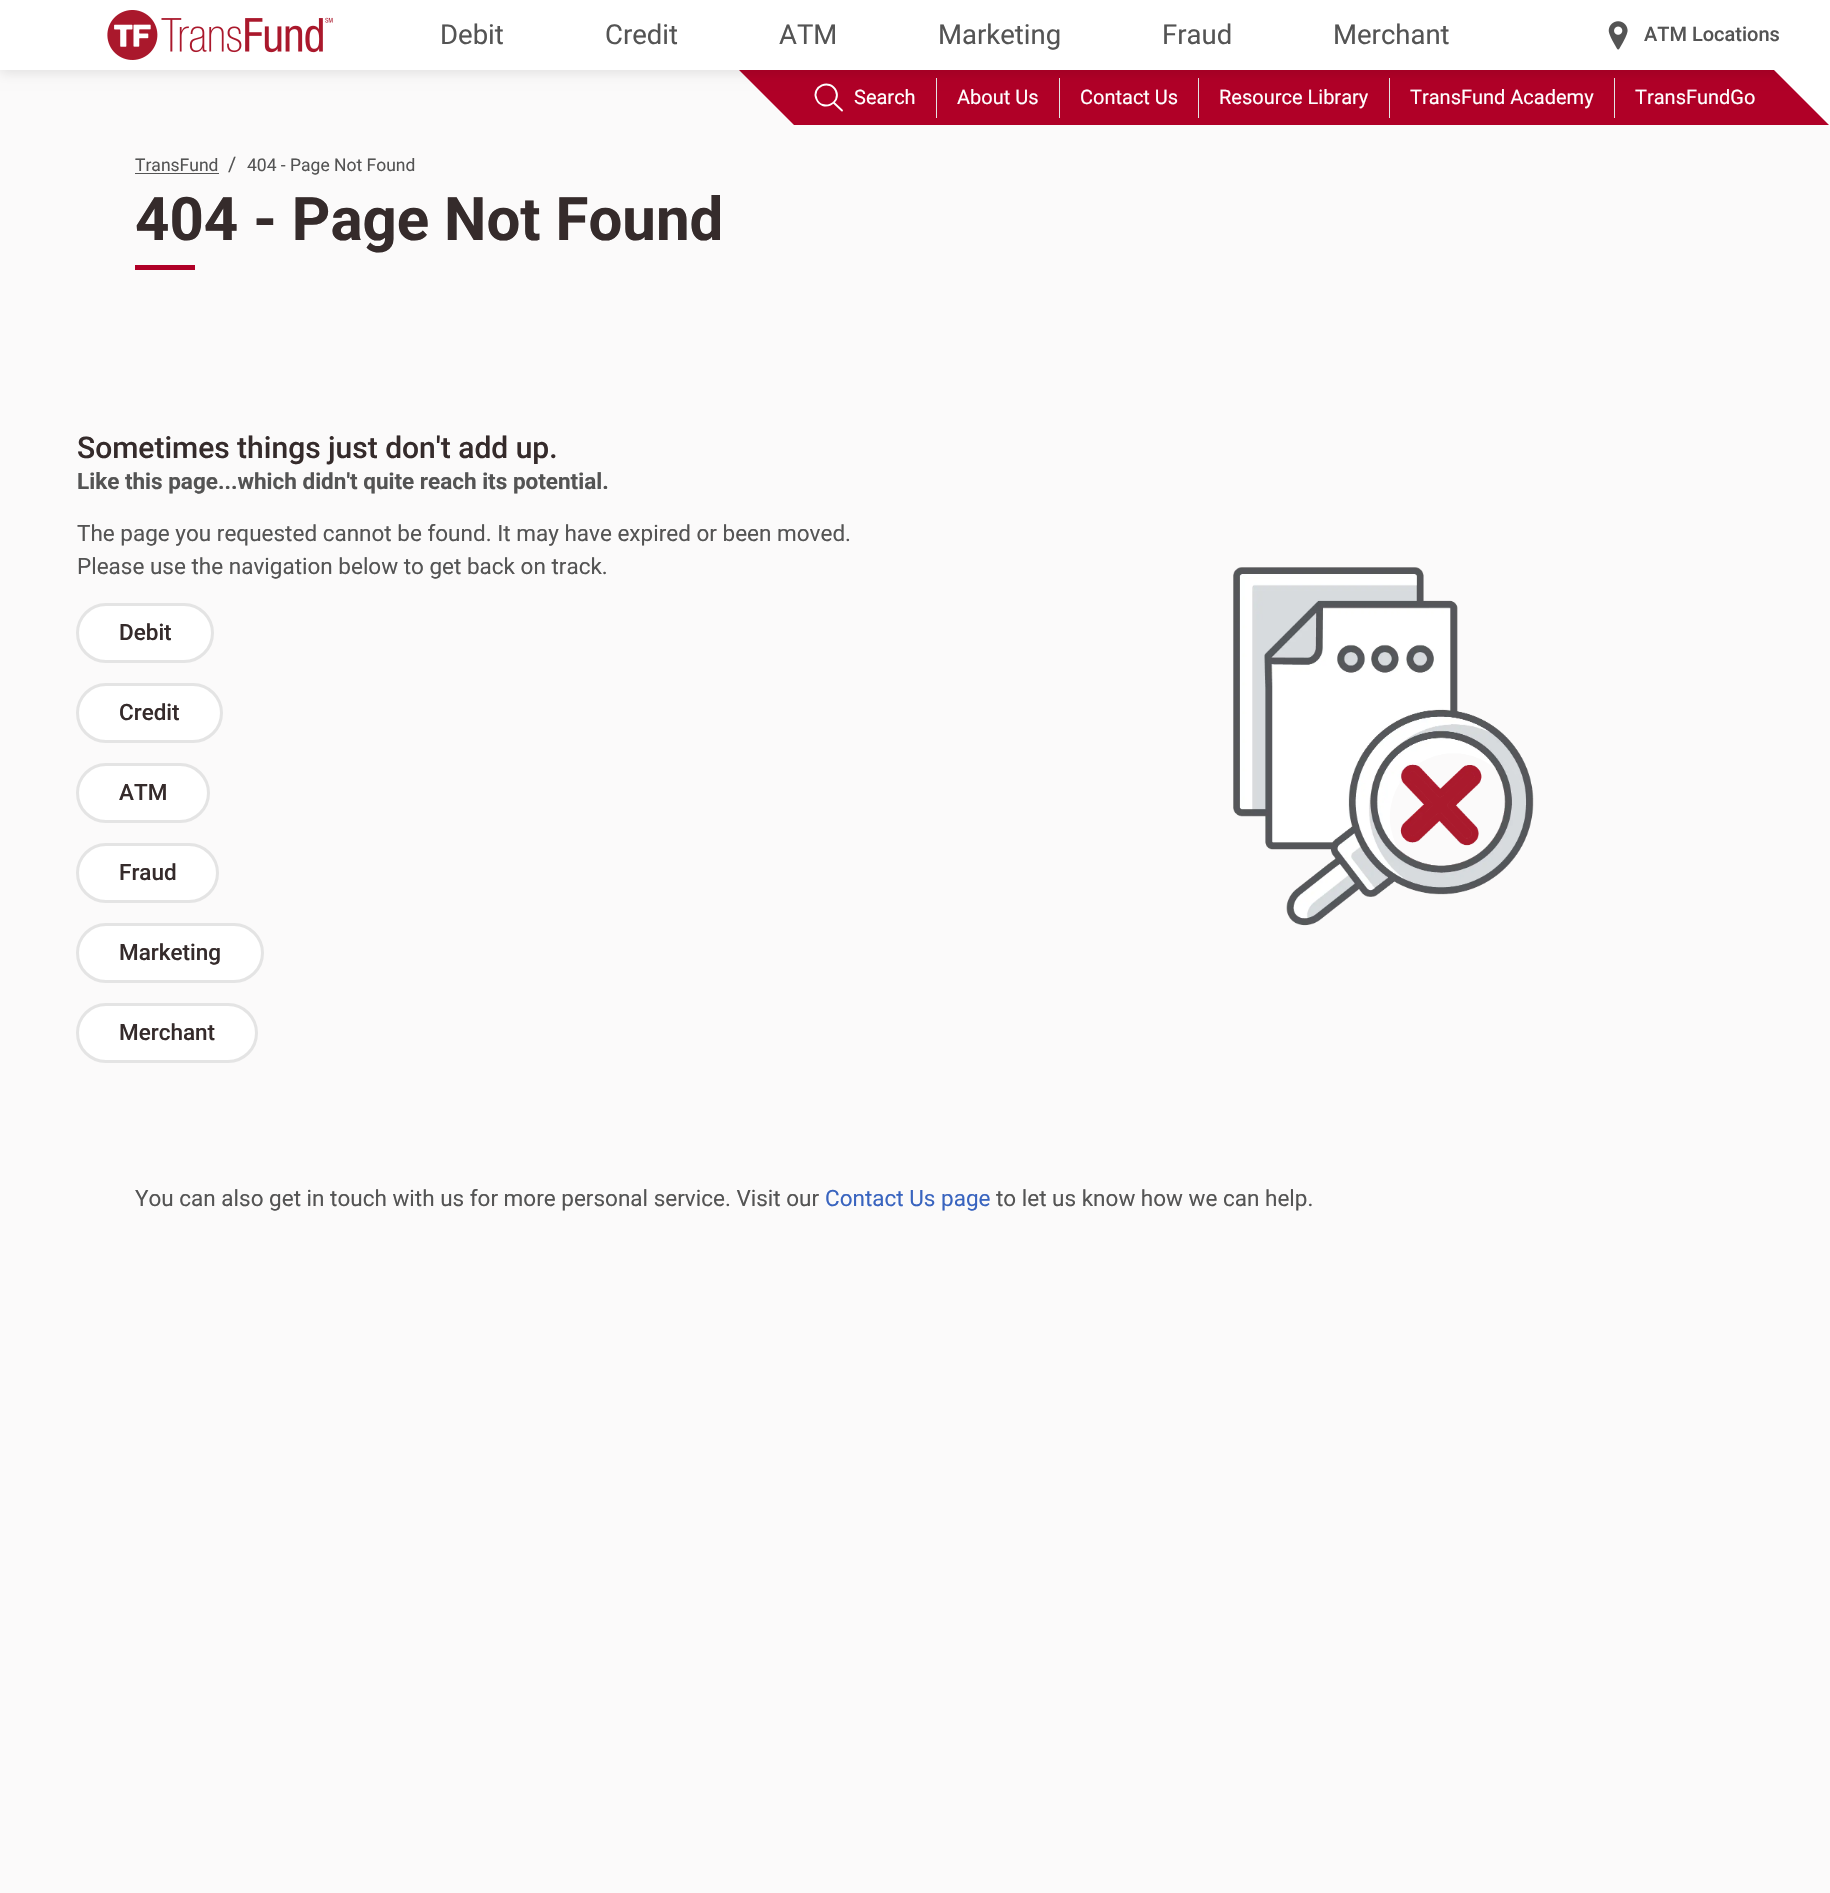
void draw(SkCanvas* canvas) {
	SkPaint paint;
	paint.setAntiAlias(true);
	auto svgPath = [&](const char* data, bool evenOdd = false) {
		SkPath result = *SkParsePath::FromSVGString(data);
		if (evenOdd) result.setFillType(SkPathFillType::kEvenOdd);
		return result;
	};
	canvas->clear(0xfffbfafa);
	paint.setColor(0xffb00027);
	canvas->drawPath(svgPath("M739 70L794 125V70Z"), paint);
	canvas->drawRect(SkRect::MakeXYWH(794, 70, 1035, 55), paint);
	paint.setStroke(true);
	paint.setStrokeWidth(1.9);
	paint.setStrokeCap(SkPaint::kRound_Cap);
	paint.setStrokeJoin(SkPaint::kRound_Join);
	paint.setColor(0xffffffff);
	canvas->drawPath(svgPath("M816.5 99C822 112 841.5 103.5 836 91C830 78 811 86.5 816.5 99ZM833.5 102.5L842 110.5"), paint);
	paint.setStroke(false);
	paint.setColor(0xffe4e4e4);
	canvas->drawRect(SkRect::MakeXYWH(936, 78, 1, 40), paint);
	canvas->drawRect(SkRect::MakeXYWH(1059, 78, 1, 40), paint);
	canvas->drawRect(SkRect::MakeXYWH(1198, 78, 1, 40), paint);
	canvas->drawRect(SkRect::MakeXYWH(1389, 78, 1, 40), paint);
	canvas->drawRect(SkRect::MakeXYWH(1614, 78, 1, 40), paint);
	paint.setColor(0x1a000000);
	paint.setMaskFilter(SkMaskFilter::MakeBlur(kNormal_SkBlurStyle, 6));
	canvas->drawRect(SkRect::MakeXYWH(0, 3, 1830, 70), paint);
	paint.setMaskFilter(nullptr);
	paint.setColor(0xffffffff);
	canvas->drawRect(SkRect::MakeXYWH(0, 0, 1830, 70), paint);
	canvas->drawImageRect(SkImages::DeferredFromEncodedData(SkData::MakeFromFileName("img1.png")), SkRect::MakeXYWH(107, 10, 226, 50), SkSamplingOptions());
	SkFont f1(fontMgr->matchFamilyStyle("Roboto", SkFontStyle::Normal()), 27.5);
	f1.setSubpixel(true);
	paint.setColor(0xff545454);
	canvas->drawString("Debit", 440, 44, f1, paint);
	canvas->drawString("Credit", 605, 44, f1, paint);
	canvas->drawString("ATM", 779, 44, f1, paint);
	canvas->drawString("Marketing", 938, 44, f1, paint);
	canvas->drawString("Fraud", 1162, 44, f1, paint);
	canvas->drawString("Merchant", 1333, 44, f1, paint);
	canvas->drawImageRect(SkImages::DeferredFromEncodedData(SkData::MakeFromFileName("img2.png")), SkRect::MakeXYWH(1608, 21, 20, 29), SkSamplingOptions());
	SkFont f2(fontMgr->matchFamilyStyle("Roboto", SkFontStyle(500, SkFontStyle::kNormal_Width, SkFontStyle::kUpright_Slant)), 20);
	f2.setSubpixel(true);
	canvas->drawString("ATM Locations", 1644, 41, f2, paint);
	paint.setColor(0xffffffff);
	canvas->drawPath(svgPath("M1774 70H1830V126Z"), paint);
	SkFont f3(fontMgr->matchFamilyStyle("Roboto", SkFontStyle::Normal()), 20);
	f3.setSubpixel(true);
	canvas->drawString("Search", 854, 104, f3, paint);
	canvas->drawString("About Us", 957, 104, f3, paint);
	canvas->drawString("Contact Us", 1080, 104, f3, paint);
	canvas->drawString("Resource Library", 1219, 104, f3, paint);
	canvas->drawString("TransFund Academy", 1410, 104, f3, paint);
	canvas->drawString("TransFundGo", 1635, 104, f3, paint);
	SkFont f4(fontMgr->matchFamilyStyle("Roboto", SkFontStyle::Normal()), 17.5);
	f4.setSubpixel(true);
	paint.setColor(0xff545454);
	canvas->drawString("TransFund", 135, 171, f4, paint);
	canvas->drawRect(SkRect::MakeXYWH(135, 173, 84, 1), paint);
	canvas->drawString("/", 228, 171, f3, paint);
	canvas->drawString("404 - Page Not Found", 247, 171, f4, paint);
	SkFont f5(fontMgr->matchFamilyStyle("Roboto", SkFontStyle::Bold()), 60);
	f5.setSubpixel(true);
	paint.setColor(0xff352b2b);
	canvas->drawString("404 - Page Not Found", 135, 240, f5, paint);
	paint.setColor(0xffb00027);
	canvas->drawRect(SkRect::MakeXYWH(135, 265, 60, 5), paint);
	SkFont f6(fontMgr->matchFamilyStyle("Roboto", SkFontStyle(500, SkFontStyle::kNormal_Width, SkFontStyle::kUpright_Slant)), 30);
	f6.setSubpixel(true);
	paint.setColor(0xff352b2b);
	canvas->drawString("Sometimes things just don't add up.", 77, 458, f6, paint);
	SkFont f7(fontMgr->matchFamilyStyle("Roboto", SkFontStyle::Bold()), 22.5);
	f7.setSubpixel(true);
	paint.setColor(0xff545454);
	canvas->drawString("Like this page...which didn't quite reach its potential.", 77, 489, f7, paint);
	SkFont f8(fontMgr->matchFamilyStyle("Roboto", SkFontStyle::Normal()), 22.5);
	f8.setSubpixel(true);
	canvas->drawString("The page you requested cannot be found. It may have expired or been moved.", 77, 541, f8, paint);
	canvas->drawString("Please use the navigation below to get back on track.", 77, 574, f8, paint);
	paint.setColor(0xffffffff);
	canvas->drawRoundRect(SkRect::MakeXYWH(77.5, 604.5, 135, 57), 28.5, 28.5, paint);
	paint.setStroke(true);
	paint.setStrokeWidth(3);
	paint.setStrokeCap(SkPaint::kButt_Cap);
	paint.setStrokeJoin(SkPaint::kMiter_Join);
	paint.setColor(0xffe4e4e4);
	canvas->drawRoundRect(SkRect::MakeXYWH(77.5, 604.5, 135, 57), 28.5, 28.5, paint);
	SkFont f9(fontMgr->matchFamilyStyle("Roboto", SkFontStyle(500, SkFontStyle::kNormal_Width, SkFontStyle::kUpright_Slant)), 22.5);
	f9.setSubpixel(true);
	paint.setStroke(false);
	paint.setColor(0xff352b2b);
	canvas->drawString("Debit", 119, 640, f9, paint);
	paint.setColor(0xffffffff);
	canvas->drawRoundRect(SkRect::MakeXYWH(77.5, 684.5, 144, 57), 28.5, 28.5, paint);
	paint.setStroke(true);
	paint.setColor(0xffe4e4e4);
	canvas->drawRoundRect(SkRect::MakeXYWH(77.5, 684.5, 144, 57), 28.5, 28.5, paint);
	paint.setStroke(false);
	paint.setColor(0xff352b2b);
	canvas->drawString("Credit", 119, 720, f9, paint);
	paint.setColor(0xffffffff);
	canvas->drawRoundRect(SkRect::MakeXYWH(77.5, 764.5, 131, 57), 28.5, 28.5, paint);
	paint.setStroke(true);
	paint.setColor(0xffe4e4e4);
	canvas->drawRoundRect(SkRect::MakeXYWH(77.5, 764.5, 131, 57), 28.5, 28.5, paint);
	paint.setStroke(false);
	paint.setColor(0xff352b2b);
	canvas->drawString("ATM", 119, 800, f9, paint);
	paint.setColor(0xffffffff);
	canvas->drawRoundRect(SkRect::MakeXYWH(77.5, 844.5, 140, 57), 28.5, 28.5, paint);
	paint.setStroke(true);
	paint.setColor(0xffe4e4e4);
	canvas->drawRoundRect(SkRect::MakeXYWH(77.5, 844.5, 140, 57), 28.5, 28.5, paint);
	paint.setStroke(false);
	paint.setColor(0xff352b2b);
	canvas->drawString("Fraud", 119, 880, f9, paint);
	paint.setColor(0xffffffff);
	canvas->drawRoundRect(SkRect::MakeXYWH(77.5, 924.5, 185, 57), 28.5, 28.5, paint);
	paint.setStroke(true);
	paint.setColor(0xffe4e4e4);
	canvas->drawRoundRect(SkRect::MakeXYWH(77.5, 924.5, 185, 57), 28.5, 28.5, paint);
	paint.setStroke(false);
	paint.setColor(0xff352b2b);
	canvas->drawString("Marketing", 119, 960, f9, paint);
	paint.setColor(0xffffffff);
	canvas->drawRoundRect(SkRect::MakeXYWH(77.5, 1004.5, 179, 57), 28.5, 28.5, paint);
	paint.setStroke(true);
	paint.setColor(0xffe4e4e4);
	canvas->drawRoundRect(SkRect::MakeXYWH(77.5, 1004.5, 179, 57), 28.5, 28.5, paint);
	paint.setStroke(false);
	paint.setColor(0xff352b2b);
	canvas->drawString("Merchant", 119, 1040, f9, paint);
	canvas->drawImageRect(SkImages::DeferredFromEncodedData(SkData::MakeFromFileName("img3.png")), SkRect::MakeXYWH(1233, 567, 301, 359), SkSamplingOptions());
	paint.setColor(0xff545454);
	canvas->drawString("You can also get in touch with us for more personal service. Visit our", 135, 1206, f8, paint);
	paint.setColor(0xff3964bf);
	canvas->drawString("Contact Us page", 825, 1206, f8, paint);
	paint.setColor(0xff545454);
	canvas->drawString("to let us know how we can help.", 996, 1206, f8, paint);
}
